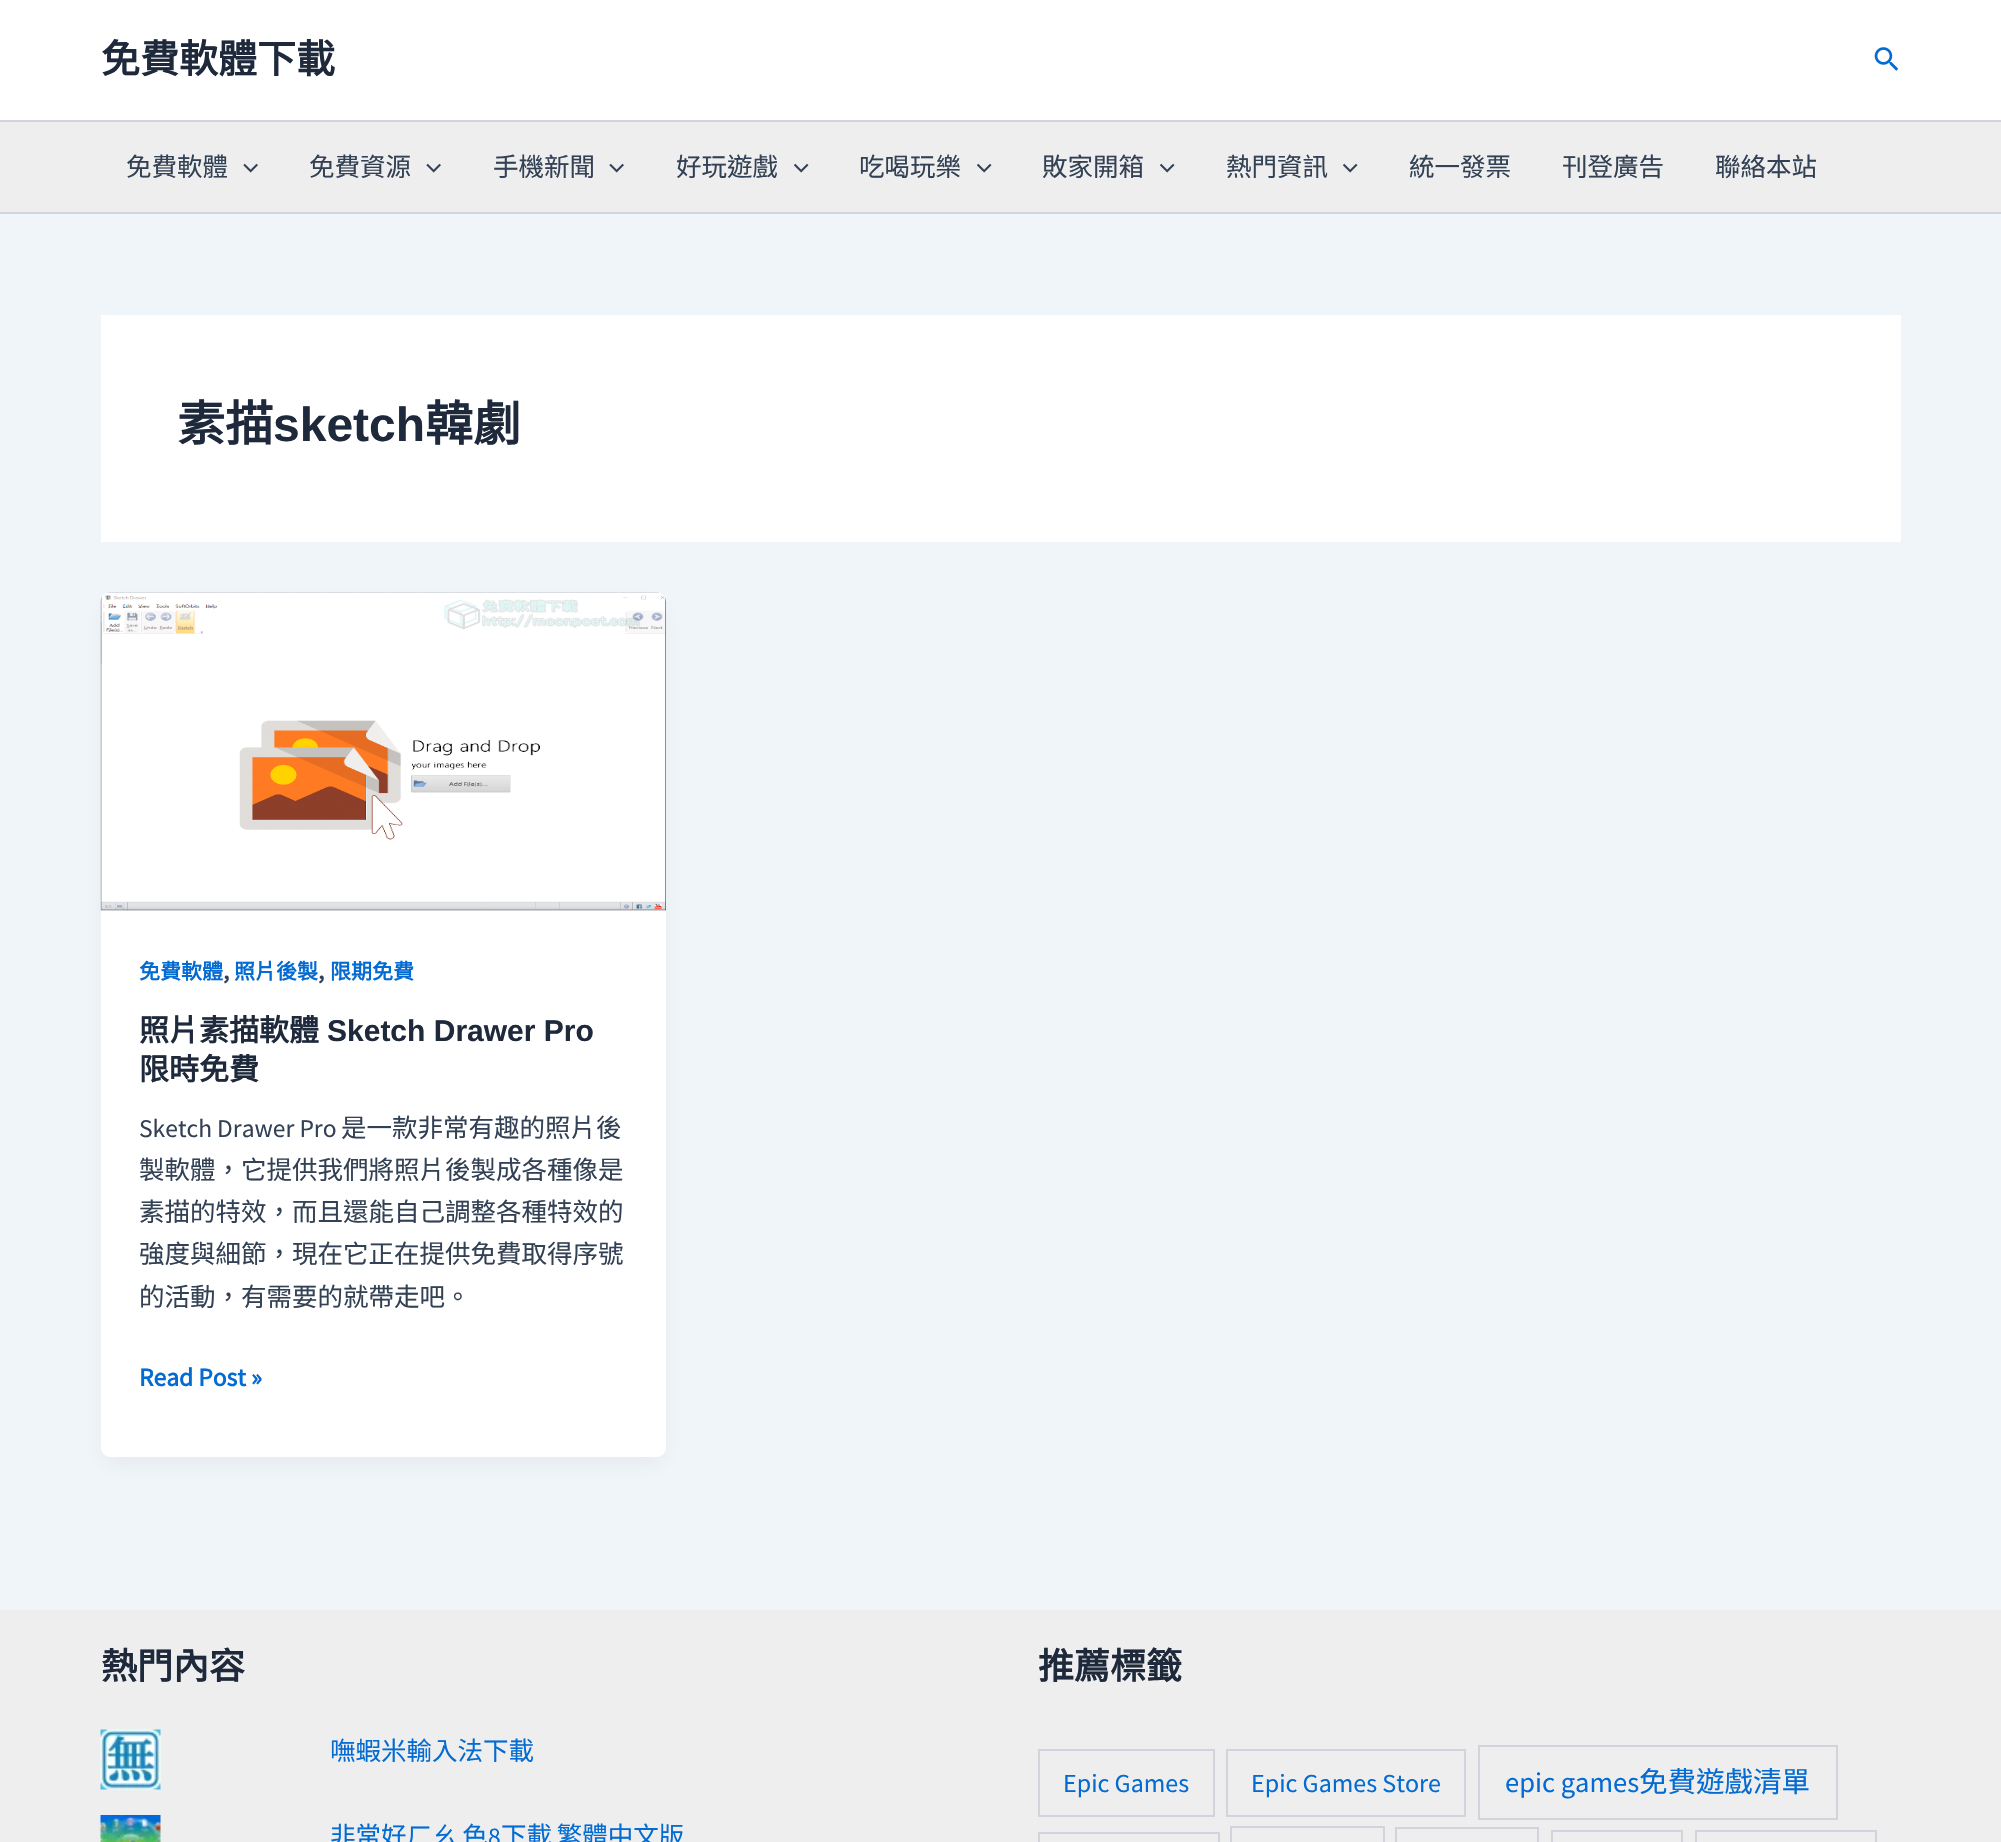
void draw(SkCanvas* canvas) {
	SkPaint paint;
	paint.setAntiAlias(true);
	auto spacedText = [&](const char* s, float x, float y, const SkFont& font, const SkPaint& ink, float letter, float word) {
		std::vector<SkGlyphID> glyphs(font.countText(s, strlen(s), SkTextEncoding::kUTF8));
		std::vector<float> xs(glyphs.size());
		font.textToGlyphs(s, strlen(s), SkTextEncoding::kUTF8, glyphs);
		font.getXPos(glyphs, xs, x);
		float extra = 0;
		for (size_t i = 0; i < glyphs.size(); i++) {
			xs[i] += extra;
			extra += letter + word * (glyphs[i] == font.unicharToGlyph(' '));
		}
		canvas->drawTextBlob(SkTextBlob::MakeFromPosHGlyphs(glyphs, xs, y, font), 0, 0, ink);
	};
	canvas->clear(0xfff0f5fa);
	paint.setColor(0xffffffff);
	canvas->drawRect(SkRect::MakeXYWH(0, 0, 2001, 120), paint);
	paint.setColor(0xffd1d5db);
	canvas->drawRect(SkRect::MakeXYWH(0, 120, 2001, 2), paint);
	SkFont f1(fontMgr->matchFamilyStyle("Noto Sans CJK TC", SkFontStyle::Bold()), 39);
	f1.setSubpixel(true);
	paint.setColor(0xff1e293b);
	canvas->drawString("免費軟體下載", 101, 73, f1, paint);
	canvas->drawImageRect(SkImages::DeferredFromEncodedData(SkData::MakeFromFileName("img1.png")), SkRect::MakeXYWH(1874, 47, 24, 24), SkSamplingOptions());
	paint.setColor(0xffeeeeee);
	canvas->drawRect(SkRect::MakeXYWH(0, 122, 2001, 90), paint);
	paint.setColor(0xffd1d5db);
	canvas->drawRect(SkRect::MakeXYWH(0, 212, 2001, 2), paint);
	SkFont f2(fontMgr->matchFamilyStyle("Noto Sans CJK TC", SkFontStyle::Normal()), 25.5);
	f2.setSubpixel(true);
	paint.setColor(0xff334155);
	canvas->drawString("免費軟體", 126, 176, f2, paint);
	canvas->drawImageRect(SkImages::DeferredFromEncodedData(SkData::MakeFromFileName("img2.png")), SkRect::MakeXYWH(243, 163, 15, 10), SkSamplingOptions());
	canvas->drawString("免費資源", 309, 176, f2, paint);
	canvas->drawImageRect(SkImages::DeferredFromEncodedData(SkData::MakeFromFileName("img2.png")), SkRect::MakeXYWH(426, 163, 15, 10), SkSamplingOptions());
	canvas->drawString("手機新聞", 493, 176, f2, paint);
	canvas->drawImageRect(SkImages::DeferredFromEncodedData(SkData::MakeFromFileName("img2.png")), SkRect::MakeXYWH(609, 163, 15, 10), SkSamplingOptions());
	canvas->drawString("好玩遊戲", 676, 176, f2, paint);
	canvas->drawImageRect(SkImages::DeferredFromEncodedData(SkData::MakeFromFileName("img3.png")), SkRect::MakeXYWH(794, 163, 15, 10), SkSamplingOptions());
	canvas->drawString("吃喝玩樂", 859, 176, f2, paint);
	canvas->drawImageRect(SkImages::DeferredFromEncodedData(SkData::MakeFromFileName("img3.png")), SkRect::MakeXYWH(977, 163, 15, 10), SkSamplingOptions());
	canvas->drawString("敗家開箱", 1042, 176, f2, paint);
	canvas->drawImageRect(SkImages::DeferredFromEncodedData(SkData::MakeFromFileName("img3.png")), SkRect::MakeXYWH(1160, 163, 15, 10), SkSamplingOptions());
	canvas->drawString("熱門資訊", 1226, 176, f2, paint);
	canvas->drawImageRect(SkImages::DeferredFromEncodedData(SkData::MakeFromFileName("img3.png")), SkRect::MakeXYWH(1343, 163, 15, 10), SkSamplingOptions());
	canvas->drawString("統一發票", 1409, 176, f2, paint);
	canvas->drawString("刊登廣告", 1562, 176, f2, paint);
	canvas->drawString("聯絡本站", 1715, 176, f2, paint);
	paint.setColor(0xffffffff);
	canvas->drawRect(SkRect::MakeXYWH(101, 315, 1800, 227), paint);
	SkFont f3(fontMgr->matchFamilyStyle("Noto Sans CJK TC", SkFontStyle::Bold()), 48);
	f3.setSubpixel(true);
	paint.setColor(0xff1e293b);
	canvas->drawString("素描", 177, 441, f3, paint);
	SkFont f4(fontMgr->matchFamilyStyle("Liberation Sans", SkFontStyle::Bold()), 48);
	f4.setSubpixel(true);
	canvas->drawString("sketch", 273, 441, f4, paint);
	canvas->drawString("韓劇", 425, 441, f3, paint);
	paint.setColor(0x0d101828);
	paint.setMaskFilter(SkMaskFilter::MakeBlur(kNormal_SkBlurStyle, 11));
	canvas->drawRoundRect(SkRect::MakeXYWH(104, 605, 559, 858), 6, 6, paint);
	paint.setMaskFilter(nullptr);
	paint.setColor(0xffffffff);
	canvas->drawRoundRect(SkRect::MakeXYWH(101, 593, 565, 864), 9, 9, paint);
	canvas->drawImageRect(SkImages::DeferredFromEncodedData(SkData::MakeFromFileName("img4.png")), SkRect::MakeXYWH(100, 592, 566, 319), SkSamplingOptions());
	SkFont f5(fontMgr->matchFamilyStyle("Noto Sans CJK TC", SkFontStyle::Bold()), 21);
	f5.setSubpixel(true);
	paint.setColor(0xff046bd2);
	canvas->drawString("免費軟體", 139, 979, f5, paint);
	SkFont f6(fontMgr->matchFamilyStyle("Source Sans Pro", SkFontStyle::Bold()), 25.5);
	f6.setSubpixel(true);
	paint.setColor(0xff334155);
	canvas->drawString(",", 223, 979, f6, paint);
	paint.setColor(0xff046bd2);
	canvas->drawString("照片後製", 234, 979, f5, paint);
	paint.setColor(0xff334155);
	canvas->drawString(",", 318, 979, f6, paint);
	paint.setColor(0xff046bd2);
	canvas->drawString("限期免費", 330, 979, f5, paint);
	SkFont f7(fontMgr->matchFamilyStyle("Noto Sans CJK TC", SkFontStyle::Bold()), 30);
	f7.setSubpixel(true);
	paint.setColor(0xff1e293b);
	canvas->drawString("照片素描軟體", 139, 1041, f7, paint);
	SkFont f8(fontMgr->matchFamilyStyle("Liberation Sans", SkFontStyle::Bold()), 30);
	f8.setSubpixel(true);
	canvas->drawString("Sketch Drawer Pro", 327, 1041, f8, paint);
	canvas->drawString("限時免費", 139, 1080, f7, paint);
	SkFont f9(fontMgr->matchFamilyStyle("Source Sans Pro", SkFontStyle::Normal()), 25.5);
	f9.setSubpixel(true);
	paint.setColor(0xff334155);
	canvas->drawString("Sketch Drawer Pro", 139, 1137, f9, paint);
	canvas->drawString("是一款非常有趣的照片後", 341, 1137, f2, paint);
	canvas->drawString("製軟體，它提供我們將照片後製成各種像是", 139, 1179, f2, paint);
	canvas->drawString("素描的特效，而且還能自己調整各種特效的", 139, 1221, f2, paint);
	canvas->drawString("強度與細節，現在它正在提供免費取得序號", 139, 1263, f2, paint);
	canvas->drawString("的活動，有需要的就帶走吧。", 139, 1306, f2, paint);
	paint.setColor(0xff046bd2);
	canvas->drawString("Read Post »", 139, 1386, f6, paint);
	paint.setColor(0xffeeeeee);
	canvas->drawRect(SkRect::MakeXYWH(0, 1610, 2001, 232), paint);
	SkFont f10(fontMgr->matchFamilyStyle("Noto Sans CJK TC", SkFontStyle::Bold()), 36);
	f10.setSubpixel(true);
	paint.setColor(0xff1e293b);
	canvas->drawString("熱門內容", 101, 1679, f10, paint);
	canvas->drawImageRect(SkImages::DeferredFromEncodedData(SkData::MakeFromFileName("img5.png")), SkRect::MakeXYWH(100, 1729, 61, 61), SkSamplingOptions());
	paint.setColor(0xff046bd2);
	canvas->drawString("嘸蝦米輸入法下載", 330, 1760, f2, paint);
	canvas->drawImageRect(SkImages::DeferredFromEncodedData(SkData::MakeFromFileName("img6.png")), SkRect::MakeXYWH(100, 1815, 61, 27), SkSamplingOptions());
	spacedText("非常好ㄏㄠ 色", 330, 1845, f2, paint, 0, -1);
	canvas->drawString("8", 488, 1845, f9, paint);
	spacedText("下載 繁體中文版", 501, 1845, f2, paint, 0, -1);
	paint.setColor(0xff1e293b);
	canvas->drawString("推薦標籤", 1038, 1679, f10, paint);
	paint.setStroke(true);
	paint.setStrokeWidth(2);
	paint.setColor(0xffd1d5db);
	canvas->drawRect(SkRect::MakeXYWH(1039, 1750, 175, 66), paint);
	SkFont f11(fontMgr->matchFamilyStyle("Source Sans Pro", SkFontStyle::Normal()), 26);
	f11.setSubpixel(true);
	paint.setStroke(false);
	paint.setColor(0xff046bd2);
	canvas->drawString("Epic Games", 1063, 1792, f11, paint);
	paint.setStroke(true);
	paint.setColor(0xffd1d5db);
	canvas->drawRect(SkRect::MakeXYWH(1227, 1750, 238, 66), paint);
	paint.setStroke(false);
	paint.setColor(0xff046bd2);
	canvas->drawString("Epic Games Store", 1251, 1792, f11, paint);
	paint.setStroke(true);
	paint.setColor(0xffd1d5db);
	canvas->drawRect(SkRect::MakeXYWH(1479, 1746, 358, 73), paint);
	SkFont f12(fontMgr->matchFamilyStyle("Source Sans Pro", SkFontStyle::Normal()), 28.5);
	f12.setSubpixel(true);
	paint.setStroke(false);
	paint.setColor(0xff046bd2);
	canvas->drawString("epic games", 1505, 1792, f12, paint);
	SkFont f13(fontMgr->matchFamilyStyle("Noto Sans CJK TC", SkFontStyle::Normal()), 28.5);
	f13.setSubpixel(true);
	canvas->drawString("免費遊戲清單", 1639, 1792, f13, paint);
	paint.setStroke(true);
	paint.setColor(0xffd1d5db);
	canvas->drawRect(SkRect::MakeXYWH(1039, 1833, 180, 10), paint);
	canvas->drawRect(SkRect::MakeXYWH(1231, 1827, 153, 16), paint);
	canvas->drawRect(SkRect::MakeXYWH(1396, 1828, 142, 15), paint);
	canvas->drawRect(SkRect::MakeXYWH(1552, 1831, 130, 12), paint);
	canvas->drawRect(SkRect::MakeXYWH(1696, 1831, 180, 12), paint);
}
